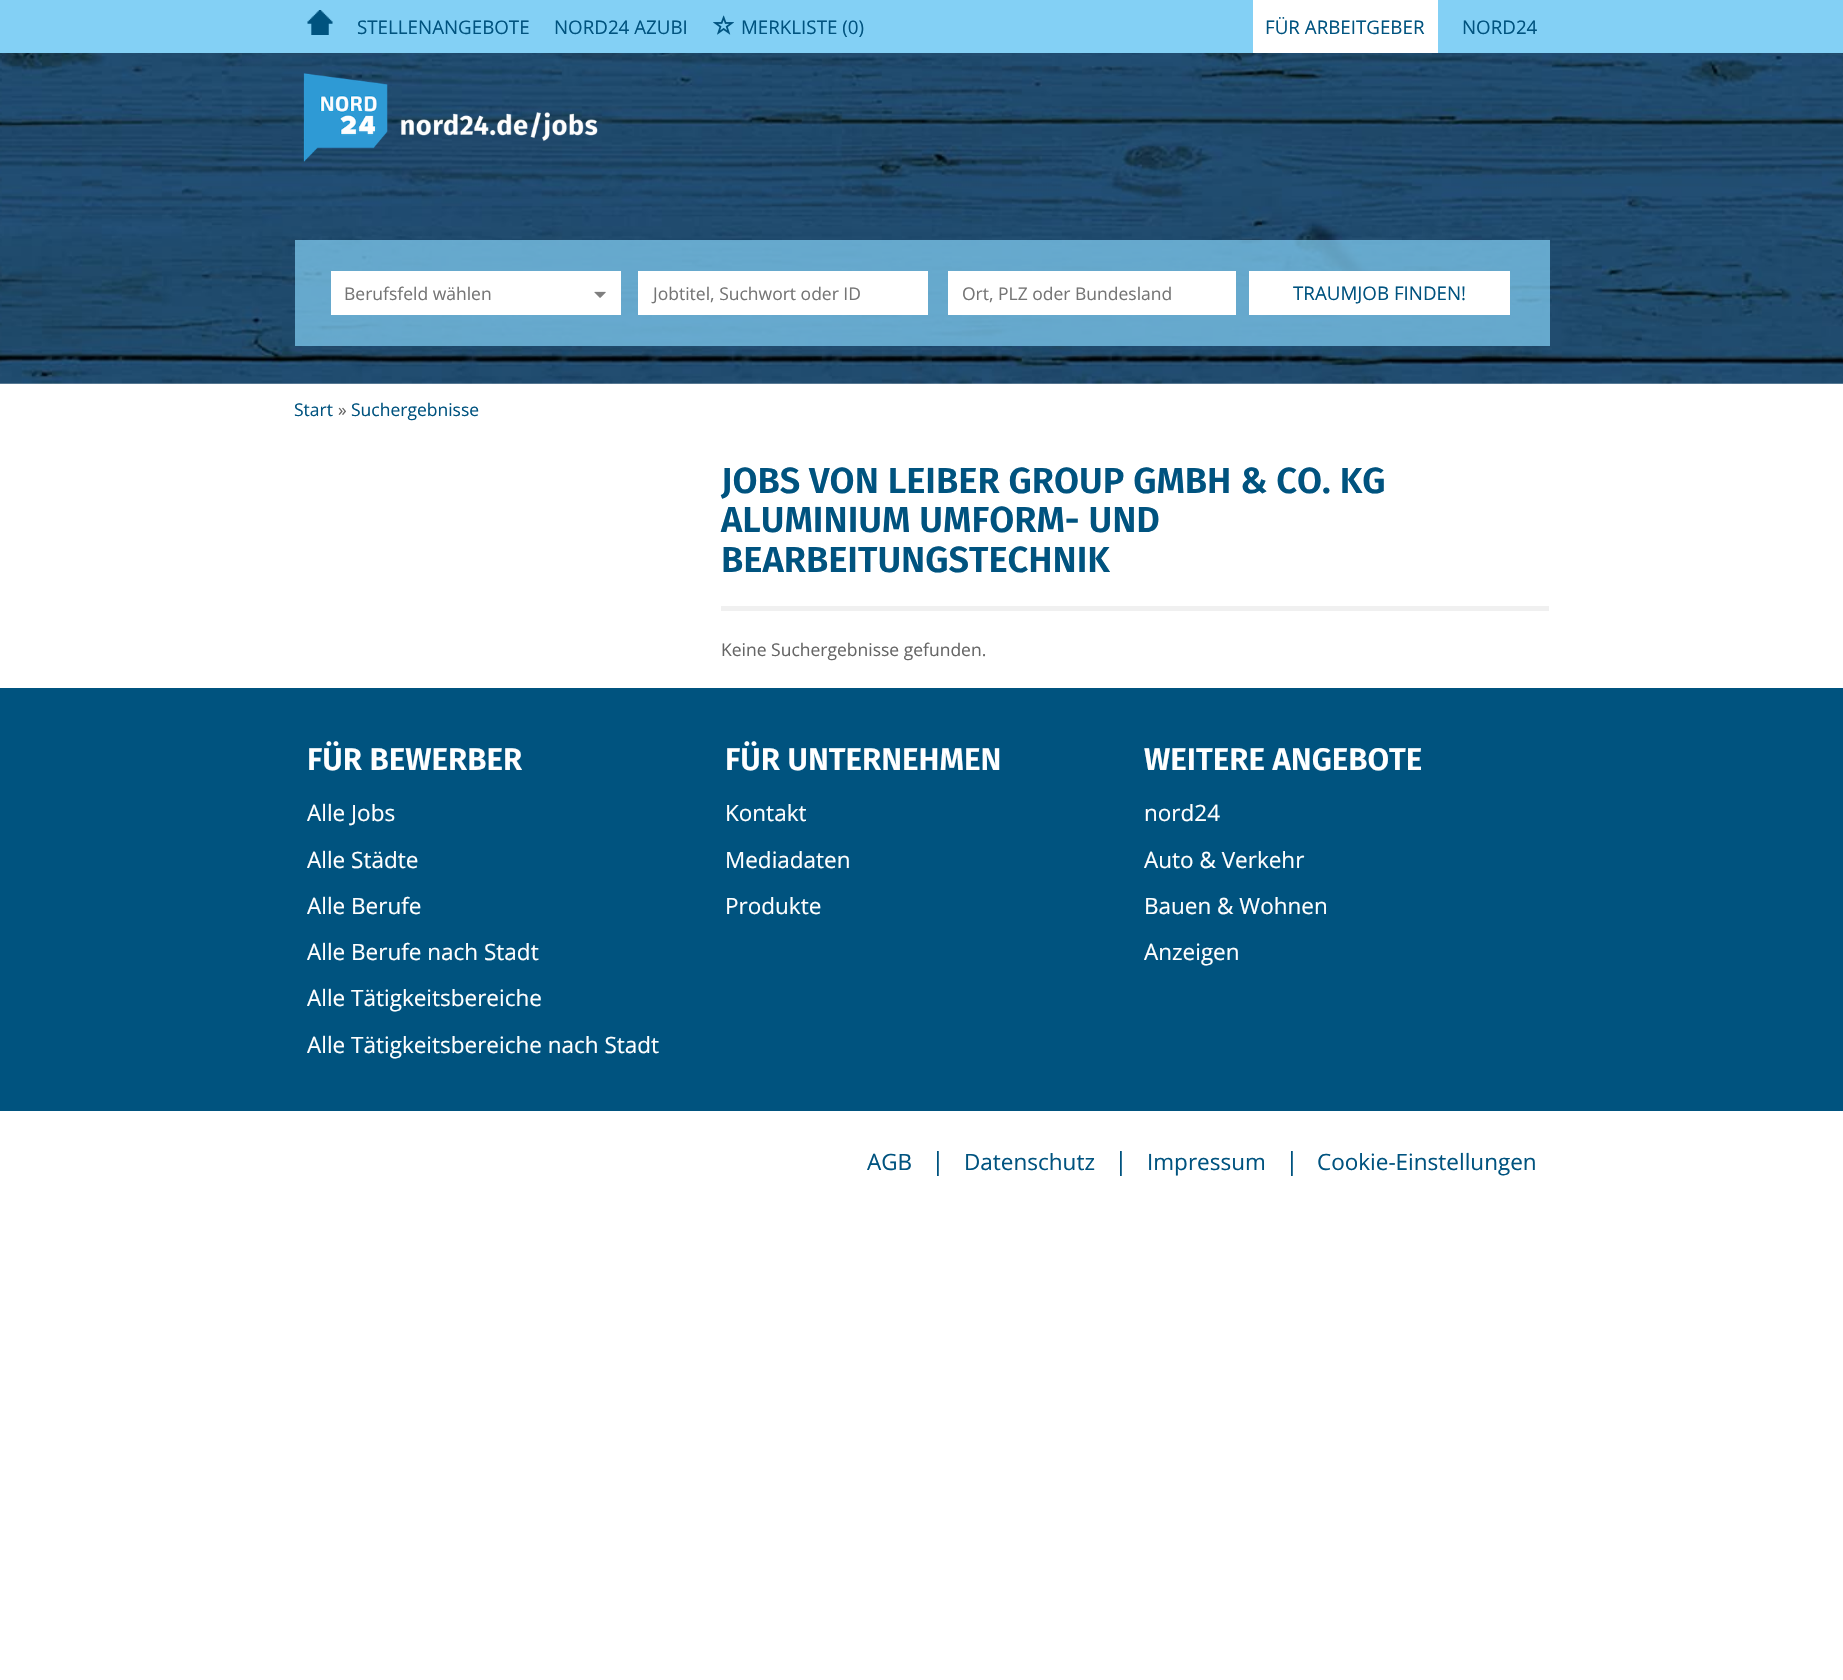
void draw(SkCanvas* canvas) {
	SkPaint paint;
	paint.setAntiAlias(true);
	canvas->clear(0xffffffff);
	paint.setColor(0xff83d0f5);
	canvas->drawRect(SkRect::MakeXYWH(0, 0, 1843, 53), paint);
	canvas->drawImageRect(SkImages::DeferredFromEncodedData(SkData::MakeFromFileName("img1.png")), SkRect::MakeXYWH(307, 10, 26, 25), SkSamplingOptions());
	SkFont f1(fontMgr->matchFamilyStyle("Open Sans", SkFontStyle::Normal()), 18.75);
	f1.setSubpixel(true);
	paint.setColor(0xff00537f);
	canvas->drawString("STELLENANGEBOTE", 357, 34, f1, paint);
	canvas->drawString("NORD24 AZUBI", 554, 34, f1, paint);
	canvas->drawImageRect(SkImages::DeferredFromEncodedData(SkData::MakeFromFileName("img2.png")), SkRect::MakeXYWH(713, 15, 21, 20), SkSamplingOptions());
	canvas->drawString("MERKLISTE (0)", 741, 34, f1, paint);
	paint.setColor(0xffffffff);
	canvas->drawRect(SkRect::MakeXYWH(1253, 0, 185, 53), paint);
	paint.setColor(0xff00537f);
	canvas->drawString("FÜR ARBEITGEBER", 1265, 34, f1, paint);
	canvas->drawString("NORD24", 1462, 34, f1, paint);
	canvas->drawImageRect(SkImages::DeferredFromEncodedData(SkData::MakeFromFileName("img3.png")), SkRect::MakeXYWH(0, 53, 1843, 331), SkSamplingOptions());
	canvas->drawImageRect(SkImages::DeferredFromEncodedData(SkData::MakeFromFileName("img4.png")), SkRect::MakeXYWH(303, 73, 295, 89), SkSamplingOptions());
	paint.setColor(0xb383d0f5);
	canvas->drawRect(SkRect::MakeXYWH(295, 240, 1255, 106), paint);
	paint.setColor(0xffffffff);
	canvas->drawRect(SkRect::MakeXYWH(331, 271, 290, 44), paint);
	SkFont f2(fontMgr->matchFamilyStyle("Open Sans", SkFontStyle::Normal()), 17.5);
	f2.setSubpixel(true);
	paint.setColor(0xff757575);
	canvas->drawString("Berufsfeld wählen", 344, 300, f2, paint);
	canvas->drawImageRect(SkImages::DeferredFromEncodedData(SkData::MakeFromFileName("img5.png")), SkRect::MakeXYWH(594, 291, 12, 7), SkSamplingOptions());
	paint.setColor(0xffffffff);
	canvas->drawRect(SkRect::MakeXYWH(638, 271, 290, 44), paint);
	paint.setColor(0xff757575);
	canvas->drawString("Jobtitel, Suchwort oder ID", 653, 300, f2, paint);
	paint.setColor(0xffffffff);
	canvas->drawRect(SkRect::MakeXYWH(948, 271, 288, 44), paint);
	paint.setColor(0xff757575);
	canvas->drawString("Ort, PLZ oder Bundesland", 962, 300, f2, paint);
	paint.setColor(0xffffffff);
	canvas->drawRect(SkRect::MakeXYWH(1249, 271, 261, 44), paint);
	paint.setColor(0xff00537f);
	canvas->drawString("TRAUMJOB FINDEN!", 1293, 300, f1, paint);
	canvas->drawString("Start", 294, 416, f2, paint);
	paint.setColor(0xff666666);
	canvas->drawString("»", 338, 416, f2, paint);
	paint.setColor(0xff00537f);
	canvas->drawString("Suchergebnisse", 351, 416, f2, paint);
	SkFont f3(fontMgr->matchFamilyStyle("Fira Sans", SkFontStyle(600, SkFontStyle::kNormal_Width, SkFontStyle::kUpright_Slant)), 36.25);
	f3.setSubpixel(true);
	canvas->drawString("JOBS VON LEIBER GROUP GMBH & CO. KG", 721, 493, f3, paint);
	canvas->drawString("ALUMINIUM UMFORM- UND", 721, 532, f3, paint);
	canvas->drawString("BEARBEITUNGSTECHNIK", 721, 572, f3, paint);
	paint.setColor(0xfff0f0f0);
	canvas->drawRect(SkRect::MakeXYWH(721, 606, 828, 5), paint);
	paint.setColor(0xff666666);
	canvas->drawString("Keine Suchergebnisse gefunden.", 721, 656, f2, paint);
	paint.setColor(0xff00537f);
	canvas->drawRect(SkRect::MakeXYWH(0, 688, 1843, 423), paint);
	SkFont f4(fontMgr->matchFamilyStyle("Fira Sans", SkFontStyle(600, SkFontStyle::kNormal_Width, SkFontStyle::kUpright_Slant)), 31.25);
	f4.setSubpixel(true);
	paint.setColor(0xffffffff);
	canvas->drawString("FÜR BEWERBER", 307, 770, f4, paint);
	SkFont f5(fontMgr->matchFamilyStyle("Open Sans", SkFontStyle::Normal()), 22.5);
	f5.setSubpixel(true);
	canvas->drawString("Alle Jobs", 307, 821, f5, paint);
	canvas->drawString("Alle Städte", 307, 868, f5, paint);
	canvas->drawString("Alle Berufe", 307, 914, f5, paint);
	canvas->drawString("Alle Berufe nach Stadt", 307, 960, f5, paint);
	canvas->drawString("Alle Tätigkeitsbereiche", 307, 1006, f5, paint);
	canvas->drawString("Alle Tätigkeitsbereiche nach Stadt", 307, 1053, f5, paint);
	canvas->drawString("FÜR UNTERNEHMEN", 725, 770, f4, paint);
	canvas->drawString("Kontakt", 725, 821, f5, paint);
	canvas->drawString("Mediadaten", 725, 868, f5, paint);
	canvas->drawString("Produkte", 725, 914, f5, paint);
	canvas->drawString("WEITERE ANGEBOTE", 1144, 770, f4, paint);
	canvas->drawString("nord24", 1144, 821, f5, paint);
	canvas->drawString("Auto & Verkehr", 1144, 868, f5, paint);
	canvas->drawString("Bauen & Wohnen", 1144, 914, f5, paint);
	canvas->drawString("Anzeigen", 1144, 960, f5, paint);
	paint.setColor(0xff00537f);
	canvas->drawString("AGB", 867, 1170, f5, paint);
	SkFont f6(fontMgr->matchFamilyStyle("Open Sans", SkFontStyle::Normal()), 25);
	f6.setSubpixel(true);
	canvas->drawString("|", 931, 1170, f6, paint);
	canvas->drawString("Datenschutz", 964, 1170, f5, paint);
	canvas->drawString("|", 1114, 1170, f6, paint);
	canvas->drawString("Impressum", 1147, 1170, f5, paint);
	canvas->drawString("|", 1285, 1170, f6, paint);
	canvas->drawString("Cookie-Einstellungen", 1317, 1170, f5, paint);
}
